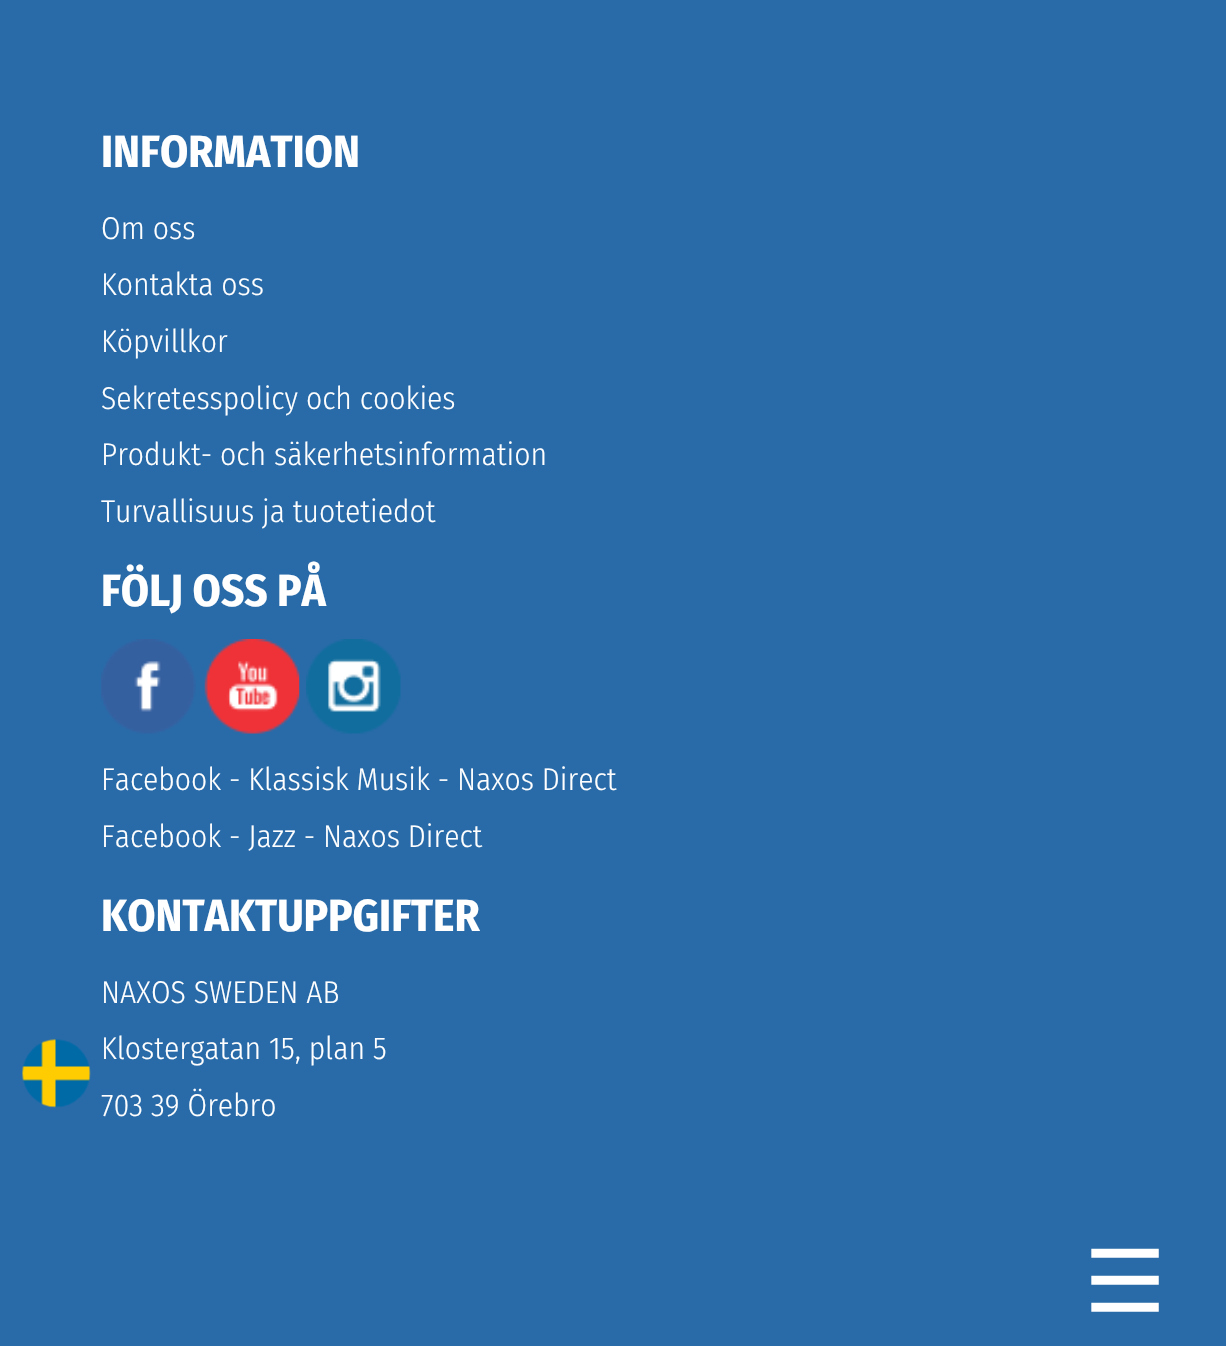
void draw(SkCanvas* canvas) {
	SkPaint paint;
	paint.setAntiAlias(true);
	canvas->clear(0xff296ba9);
	canvas->drawImageRect(SkImages::DeferredFromEncodedData(SkData::MakeFromFileName("img1.png")), SkRect::MakeXYWH(22, 1039, 69, 69), SkSamplingOptions());
	SkFont f1(fontMgr->matchFamilyStyle("Fira Sans Condensed", SkFontStyle::Bold()), 45);
	f1.setSubpixel(true);
	paint.setColor(0xffffffff);
	canvas->drawString("INFORMATION", 101, 167, f1, paint);
	SkFont f2(fontMgr->matchFamilyStyle("Fira Sans Condensed", SkFontStyle(300, SkFontStyle::kNormal_Width, SkFontStyle::kUpright_Slant)), 31.5);
	f2.setSubpixel(true);
	canvas->drawString("Om oss", 101, 239, f2, paint);
	canvas->drawString("Kontakta oss", 101, 295, f2, paint);
	canvas->drawString("Köpvillkor", 101, 352, f2, paint);
	canvas->drawString("Sekretesspolicy och cookies", 101, 409, f2, paint);
	canvas->drawString("Produkt- och säkerhetsinformation", 101, 465, f2, paint);
	canvas->drawString("Turvallisuus ja tuotetiedot", 101, 522, f2, paint);
	canvas->drawString("FÖLJ OSS PÅ", 101, 606, f1, paint);
	canvas->drawImageRect(SkImages::DeferredFromEncodedData(SkData::MakeFromFileName("img2.png")), SkRect::MakeXYWH(101, 639, 95, 95), SkSamplingOptions());
	canvas->drawImageRect(SkImages::DeferredFromEncodedData(SkData::MakeFromFileName("img3.png")), SkRect::MakeXYWH(204, 639, 96, 95), SkSamplingOptions());
	canvas->drawImageRect(SkImages::DeferredFromEncodedData(SkData::MakeFromFileName("img4.png")), SkRect::MakeXYWH(306, 639, 95, 95), SkSamplingOptions());
	canvas->drawString("Facebook - Klassisk Musik - Naxos Direct", 101, 790, f2, paint);
	canvas->drawString("Facebook - Jazz - Naxos Direct", 101, 847, f2, paint);
	canvas->drawString("KONTAKTUPPGIFTER", 101, 931, f1, paint);
	canvas->drawString("NAXOS SWEDEN AB", 101, 1003, f2, paint);
	canvas->drawString("Klostergatan 15, plan 5", 101, 1059, f2, paint);
	canvas->drawString("703 39 Örebro", 101, 1116, f2, paint);
	canvas->drawImageRect(SkImages::DeferredFromEncodedData(SkData::MakeFromFileName("img5.png")), SkRect::MakeXYWH(1091, 1248, 68, 64), SkSamplingOptions());
}
